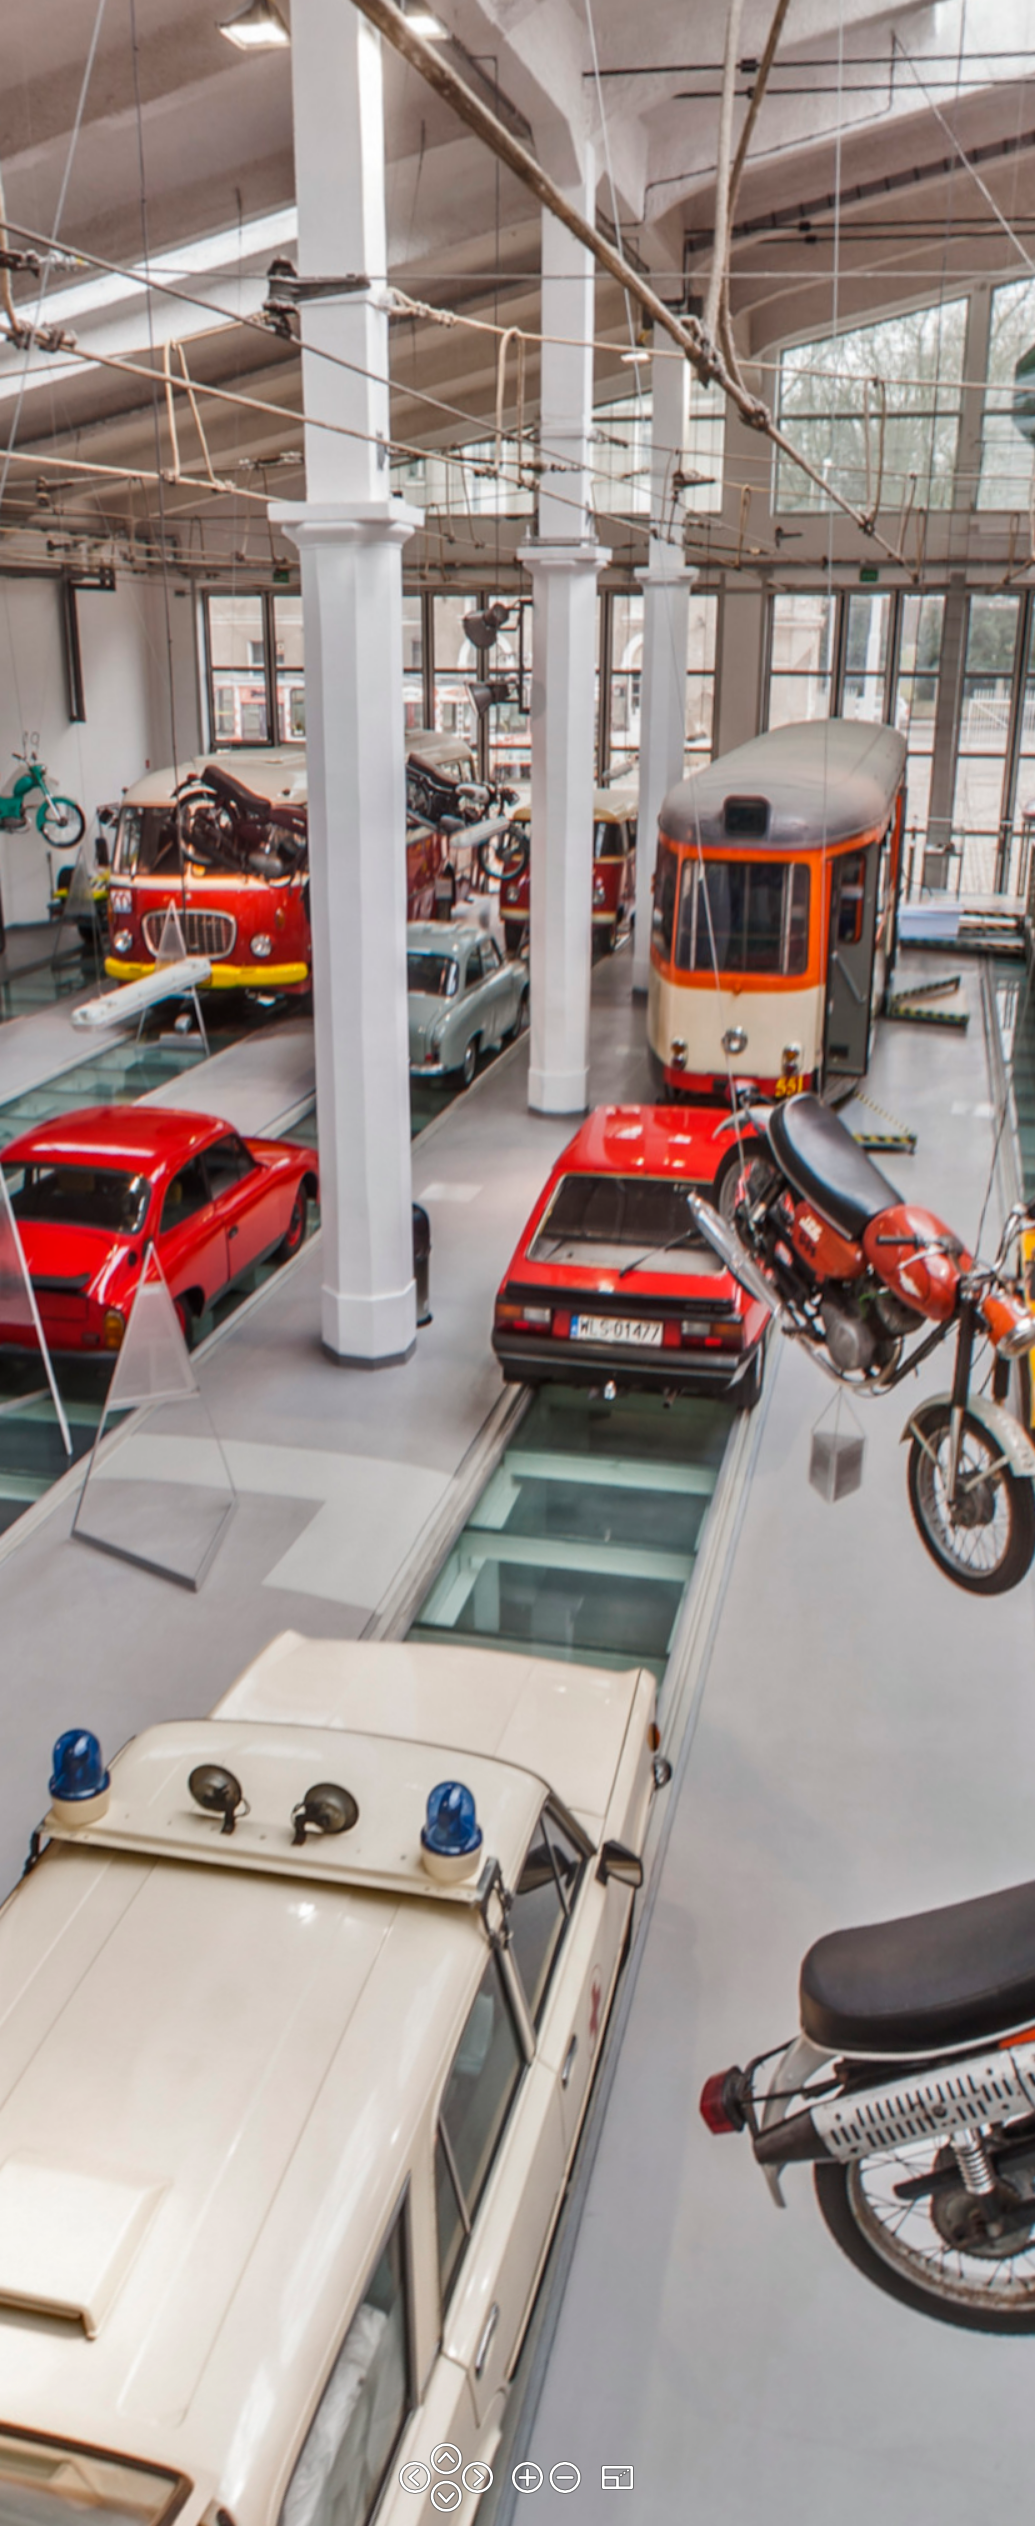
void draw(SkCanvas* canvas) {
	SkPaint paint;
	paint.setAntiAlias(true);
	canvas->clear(0xffffffff);
	canvas->drawImageRect(SkImages::DeferredFromEncodedData(SkData::MakeFromFileName("img1.png")), SkRect::MakeXYWH(0, 0, 1035, 2526), SkSamplingOptions());
	canvas->drawImageRect(SkImages::DeferredFromEncodedData(SkData::MakeFromFileName("img3.png")), SkRect::MakeXYWH(429, 2442, 34, 34), SkSamplingOptions());
	canvas->drawImageRect(SkImages::DeferredFromEncodedData(SkData::MakeFromFileName("img8.png")), SkRect::MakeXYWH(429, 2479, 34, 34), SkSamplingOptions());
	canvas->drawImageRect(SkImages::DeferredFromEncodedData(SkData::MakeFromFileName("img2.png")), SkRect::MakeXYWH(398, 2461, 34, 33), SkSamplingOptions());
	canvas->drawImageRect(SkImages::DeferredFromEncodedData(SkData::MakeFromFileName("img4.png")), SkRect::MakeXYWH(461, 2461, 33, 34), SkSamplingOptions());
	canvas->drawImageRect(SkImages::DeferredFromEncodedData(SkData::MakeFromFileName("img5.png")), SkRect::MakeXYWH(511, 2461, 33, 33), SkSamplingOptions());
	canvas->drawImageRect(SkImages::DeferredFromEncodedData(SkData::MakeFromFileName("img6.png")), SkRect::MakeXYWH(548, 2461, 34, 33), SkSamplingOptions());
	canvas->drawImageRect(SkImages::DeferredFromEncodedData(SkData::MakeFromFileName("img7.png")), SkRect::MakeXYWH(601, 2465, 33, 25), SkSamplingOptions());
}
